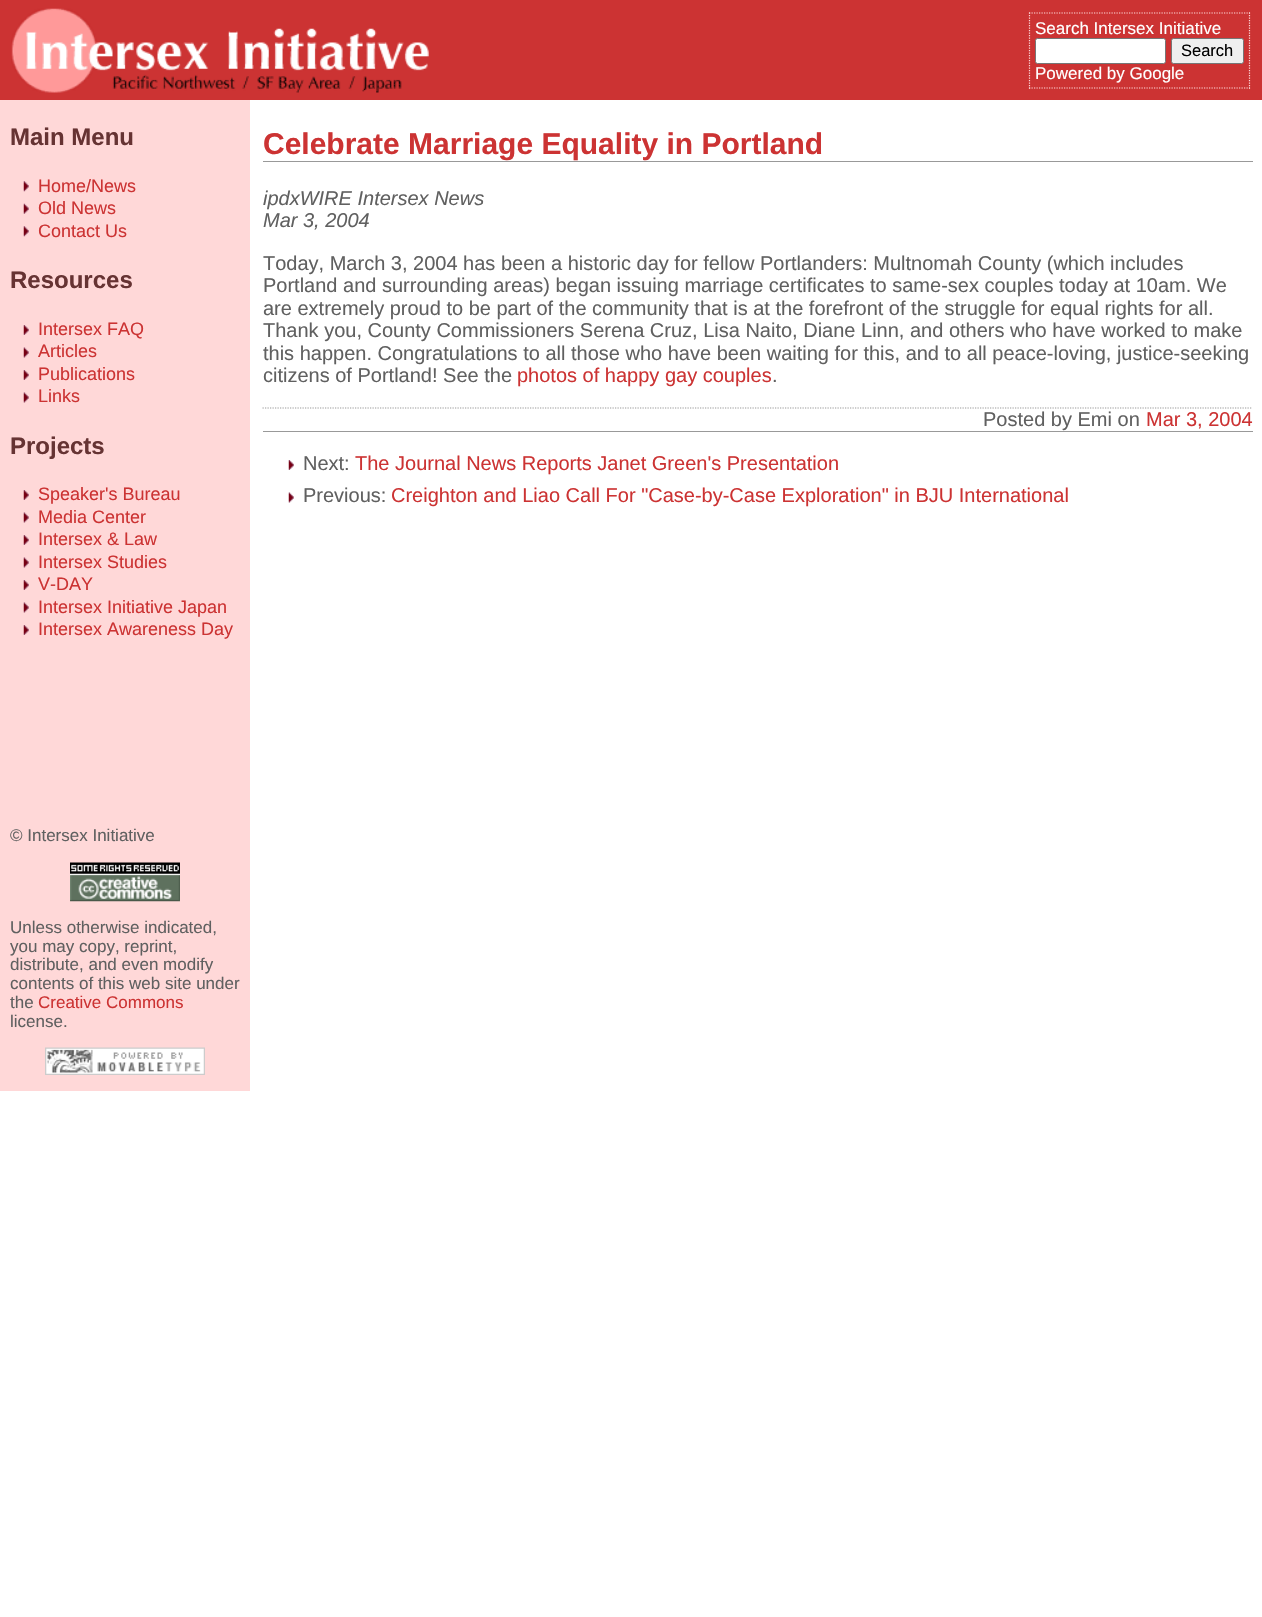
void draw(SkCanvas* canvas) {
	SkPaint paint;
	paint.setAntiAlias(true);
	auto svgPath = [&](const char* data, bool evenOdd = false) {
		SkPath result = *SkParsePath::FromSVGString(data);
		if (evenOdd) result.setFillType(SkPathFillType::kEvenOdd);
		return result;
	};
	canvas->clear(0xffffffff);
	paint.setColor(0xffcc3333);
	canvas->drawRect(SkRect::MakeXYWH(0, 0, 1262, 100), paint);
	canvas->drawImageRect(SkImages::DeferredFromEncodedData(SkData::MakeFromFileName("img1.png")), SkRect::MakeXYWH(11, 8, 418, 85), SkSamplingOptions());
	paint.setStroke(true);
	paint.setStrokeWidth(1.2);
	paint.setColor(0xffffd8d8);
	paint.setPathEffect(SkDashPathEffect::Make({{1.25f, 1.25f}}, 0));
	canvas->drawPath(svgPath("M1029 13H1250"), paint);
	paint.setPathEffect(nullptr);
	paint.setPathEffect(SkDashPathEffect::Make({{1.25f, 1.25f}}, 0));
	canvas->drawPath(svgPath("M1249.5 12.5V89"), paint);
	paint.setPathEffect(nullptr);
	paint.setPathEffect(SkDashPathEffect::Make({{1.25f, 1.25f}}, 0));
	canvas->drawPath(svgPath("M1029 88H1250"), paint);
	paint.setPathEffect(nullptr);
	paint.setPathEffect(SkDashPathEffect::Make({{1.25f, 1.25f}}, 0));
	canvas->drawPath(svgPath("M1029.5 12.5V89"), paint);
	paint.setPathEffect(nullptr);
	SkFont f1(fontMgr->matchFamilyStyle("Liberation Sans", SkFontStyle::Normal()), 17);
	f1.setSubpixel(true);
	paint.setStroke(false);
	paint.setColor(0xffffffff);
	canvas->drawString("Search Intersex Initiative", 1035, 34, f1, paint);
	canvas->drawRoundRect(SkRect::MakeXYWH(1035.5, 38.5, 130, 25), 2, 2, paint);
	paint.setStroke(true);
	paint.setStrokeWidth(1);
	paint.setColor(0xff767676);
	canvas->drawRoundRect(SkRect::MakeXYWH(1035.5, 38.5, 130, 25), 2, 2, paint);
	paint.setStroke(false);
	paint.setColor(0xffefefef);
	canvas->drawRoundRect(SkRect::MakeXYWH(1171.5, 38.5, 72, 25), 2, 2, paint);
	paint.setStroke(true);
	paint.setColor(0xff767676);
	canvas->drawRoundRect(SkRect::MakeXYWH(1171.5, 38.5, 72, 25), 2, 2, paint);
	SkFont f2(fontMgr->matchFamilyStyle("Liberation Sans", SkFontStyle::Normal()), 16.5);
	f2.setSubpixel(true);
	paint.setStroke(false);
	paint.setColor(0xff000000);
	canvas->drawString("Search", 1181, 56, f2, paint);
	paint.setColor(0xffffffff);
	canvas->drawString("Powered by Google", 1035, 79, f1, paint);
	paint.setColor(0xffffd8d8);
	canvas->drawRect(SkRect::MakeXYWH(0, 100, 250, 991), paint);
	SkFont f3(fontMgr->matchFamilyStyle("Liberation Sans", SkFontStyle::Bold()), 24);
	f3.setSubpixel(true);
	paint.setColor(0xff663333);
	canvas->drawString("Main Menu", 10, 145, f3, paint);
	canvas->drawImageRect(SkImages::DeferredFromEncodedData(SkData::MakeFromFileName("img2.png")), SkRect::MakeXYWH(23, 181, 6, 11), SkSamplingOptions());
	SkFont f4(fontMgr->matchFamilyStyle("Liberation Sans", SkFontStyle::Normal()), 18);
	f4.setSubpixel(true);
	paint.setColor(0xffcc3333);
	canvas->drawString("Home/News", 38, 192, f4, paint);
	canvas->drawImageRect(SkImages::DeferredFromEncodedData(SkData::MakeFromFileName("img3.png")), SkRect::MakeXYWH(23, 203, 6, 11), SkSamplingOptions());
	canvas->drawString("Old News", 38, 214, f4, paint);
	canvas->drawImageRect(SkImages::DeferredFromEncodedData(SkData::MakeFromFileName("img2.png")), SkRect::MakeXYWH(23, 226, 6, 11), SkSamplingOptions());
	canvas->drawString("Contact Us", 38, 237, f4, paint);
	paint.setColor(0xff663333);
	canvas->drawString("Resources", 10, 288, f3, paint);
	canvas->drawImageRect(SkImages::DeferredFromEncodedData(SkData::MakeFromFileName("img4.png")), SkRect::MakeXYWH(23, 325, 6, 10), SkSamplingOptions());
	paint.setColor(0xffcc3333);
	canvas->drawString("Intersex FAQ", 38, 335, f4, paint);
	canvas->drawImageRect(SkImages::DeferredFromEncodedData(SkData::MakeFromFileName("img5.png")), SkRect::MakeXYWH(23, 347, 6, 11), SkSamplingOptions());
	canvas->drawString("Articles", 38, 357, f4, paint);
	canvas->drawImageRect(SkImages::DeferredFromEncodedData(SkData::MakeFromFileName("img4.png")), SkRect::MakeXYWH(23, 370, 6, 10), SkSamplingOptions());
	canvas->drawString("Publications", 38, 380, f4, paint);
	canvas->drawImageRect(SkImages::DeferredFromEncodedData(SkData::MakeFromFileName("img5.png")), SkRect::MakeXYWH(23, 392, 6, 11), SkSamplingOptions());
	canvas->drawString("Links", 38, 402, f4, paint);
	paint.setColor(0xff663333);
	canvas->drawString("Projects", 10, 454, f3, paint);
	canvas->drawImageRect(SkImages::DeferredFromEncodedData(SkData::MakeFromFileName("img4.png")), SkRect::MakeXYWH(23, 490, 6, 10), SkSamplingOptions());
	paint.setColor(0xffcc3333);
	canvas->drawString("Speaker's Bureau", 38, 500, f4, paint);
	canvas->drawImageRect(SkImages::DeferredFromEncodedData(SkData::MakeFromFileName("img5.png")), SkRect::MakeXYWH(23, 512, 6, 11), SkSamplingOptions());
	canvas->drawString("Media Center", 38, 523, f4, paint);
	canvas->drawImageRect(SkImages::DeferredFromEncodedData(SkData::MakeFromFileName("img4.png")), SkRect::MakeXYWH(23, 535, 6, 10), SkSamplingOptions());
	canvas->drawString("Intersex & Law", 38, 545, f4, paint);
	canvas->drawImageRect(SkImages::DeferredFromEncodedData(SkData::MakeFromFileName("img5.png")), SkRect::MakeXYWH(23, 557, 6, 11), SkSamplingOptions());
	canvas->drawString("Intersex Studies", 38, 568, f4, paint);
	canvas->drawImageRect(SkImages::DeferredFromEncodedData(SkData::MakeFromFileName("img4.png")), SkRect::MakeXYWH(23, 580, 6, 10), SkSamplingOptions());
	canvas->drawString("V-DAY", 38, 590, f4, paint);
	canvas->drawImageRect(SkImages::DeferredFromEncodedData(SkData::MakeFromFileName("img5.png")), SkRect::MakeXYWH(23, 602, 6, 11), SkSamplingOptions());
	canvas->drawString("Intersex Initiative Japan", 38, 613, f4, paint);
	canvas->drawImageRect(SkImages::DeferredFromEncodedData(SkData::MakeFromFileName("img4.png")), SkRect::MakeXYWH(23, 625, 6, 10), SkSamplingOptions());
	canvas->drawString("Intersex Awareness Day", 38, 635, f4, paint);
	paint.setColor(0xff606060);
	canvas->drawString("© Intersex Initiative", 10, 841, f1, paint);
	canvas->drawImageRect(SkImages::DeferredFromEncodedData(SkData::MakeFromFileName("img6.png")), SkRect::MakeXYWH(70, 862, 110, 40), SkSamplingOptions());
	canvas->drawString("Unless otherwise indicated,", 10, 933, f1, paint);
	canvas->drawString("you may copy, reprint,", 10, 952, f1, paint);
	canvas->drawString("distribute, and even modify", 10, 970, f1, paint);
	canvas->drawString("contents of this web site under", 10, 989, f1, paint);
	canvas->drawString("the", 10, 1008, f1, paint);
	paint.setColor(0xffcc3333);
	canvas->drawString("Creative Commons", 38, 1008, f1, paint);
	paint.setColor(0xff606060);
	canvas->drawString("license.", 10, 1027, f1, paint);
	canvas->drawImageRect(SkImages::DeferredFromEncodedData(SkData::MakeFromFileName("img7.png")), SkRect::MakeXYWH(45, 1047, 160, 28), SkSamplingOptions());
	paint.setColor(0xff999999);
	canvas->drawRect(SkRect::MakeXYWH(263, 161, 990, 1), paint);
	SkFont f5(fontMgr->matchFamilyStyle("Liberation Sans", SkFontStyle::Bold()), 30);
	f5.setSubpixel(true);
	paint.setColor(0xffcc3333);
	canvas->drawString("Celebrate Marriage Equality in Portland", 263, 154, f5, paint);
	SkFont f6(fontMgr->matchFamilyStyle("Liberation Sans", SkFontStyle::Italic()), 20);
	f6.setSubpixel(true);
	paint.setColor(0xff606060);
	canvas->drawString("ipdxWIRE Intersex News", 263, 205, f6, paint);
	canvas->drawString("Mar 3, 2004", 263, 227, f6, paint);
	SkFont f7(fontMgr->matchFamilyStyle("Liberation Sans", SkFontStyle::Normal()), 20);
	f7.setSubpixel(true);
	canvas->drawString("Today, March 3, 2004 has been a historic day for fellow Portlanders: Multnomah County (which includes", 263, 270, f7, paint);
	canvas->drawString("Portland and surrounding areas) began issuing marriage certificates to same-sex couples today at 10am. We", 263, 292, f7, paint);
	canvas->drawString("are extremely proud to be part of the community that is at the forefront of the struggle for equal rights for all.", 263, 315, f7, paint);
	canvas->drawString("Thank you, County Commissioners Serena Cruz, Lisa Naito, Diane Linn, and others who have worked to make", 263, 337, f7, paint);
	canvas->drawString("this happen. Congratulations to all those who have been waiting for this, and to all peace-loving, justice-seeking", 263, 360, f7, paint);
	canvas->drawString("citizens of Portland! See the", 263, 382, f7, paint);
	paint.setColor(0xffcc3333);
	canvas->drawString("photos of happy gay couples", 517, 382, f7, paint);
	paint.setColor(0xff606060);
	canvas->drawString(".", 772, 382, f7, paint);
	paint.setStroke(true);
	paint.setStrokeWidth(1.2);
	paint.setColor(0xff999999);
	paint.setPathEffect(SkDashPathEffect::Make({{1.25f, 1.25f}}, 0));
	canvas->drawPath(svgPath("M262.5 408H1252.5"), paint);
	paint.setPathEffect(nullptr);
	paint.setStroke(false);
	canvas->drawRect(SkRect::MakeXYWH(263, 431, 990, 1), paint);
	paint.setColor(0xff606060);
	canvas->drawString("Posted by Emi on", 983, 426, f7, paint);
	paint.setColor(0xffcc3333);
	canvas->drawString("Mar 3, 2004", 1146, 426, f7, paint);
	canvas->drawImageRect(SkImages::DeferredFromEncodedData(SkData::MakeFromFileName("img8.png")), SkRect::MakeXYWH(288, 460, 6, 10), SkSamplingOptions());
	paint.setColor(0xff606060);
	canvas->drawString("Next:", 303, 470, f7, paint);
	paint.setColor(0xffcc3333);
	canvas->drawString("The Journal News Reports Janet Green's Presentation", 355, 470, f7, paint);
	canvas->drawImageRect(SkImages::DeferredFromEncodedData(SkData::MakeFromFileName("img9.png")), SkRect::MakeXYWH(288, 492, 6, 11), SkSamplingOptions());
	paint.setColor(0xff606060);
	canvas->drawString("Previous:", 303, 502, f7, paint);
	paint.setColor(0xffcc3333);
	canvas->drawString("Creighton and Liao Call For \"Case-by-Case Exploration\" in BJU International", 391, 502, f7, paint);
}
